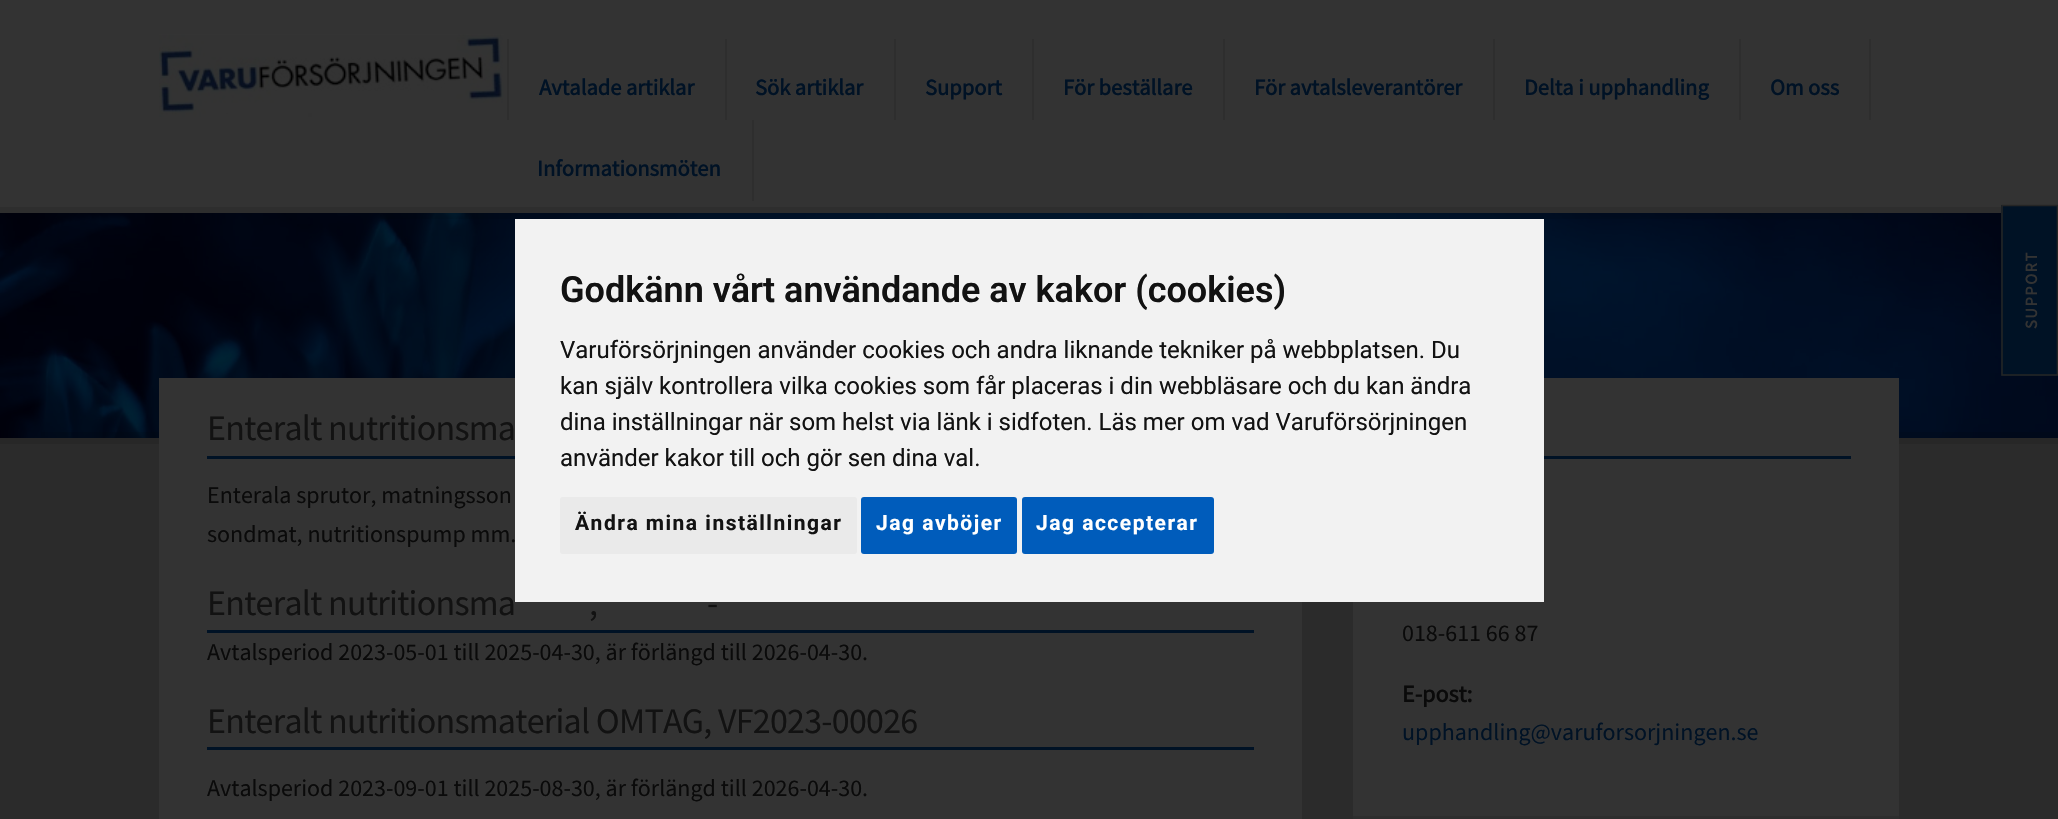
void draw(SkCanvas* canvas) {
	SkPaint paint;
	paint.setAntiAlias(true);
	auto spacedText = [&](const char* s, float x, float y, const SkFont& font, const SkPaint& ink, float letter, float word) {
		std::vector<SkGlyphID> glyphs(font.countText(s, strlen(s), SkTextEncoding::kUTF8));
		std::vector<float> xs(glyphs.size());
		font.textToGlyphs(s, strlen(s), SkTextEncoding::kUTF8, glyphs);
		font.getXPos(glyphs, xs, x);
		float extra = 0;
		for (size_t i = 0; i < glyphs.size(); i++) {
			xs[i] += extra;
			extra += letter + word * (glyphs[i] == font.unicharToGlyph(' '));
		}
		canvas->drawTextBlob(SkTextBlob::MakeFromPosHGlyphs(glyphs, xs, y, font), 0, 0, ink);
	};
	auto svgPath = [&](const char* data, bool evenOdd = false) {
		SkPath result = *SkParsePath::FromSVGString(data);
		if (evenOdd) result.setFillType(SkPathFillType::kEvenOdd);
		return result;
	};
	canvas->clear(0xff2b2b2b);
	canvas->drawImageRect(SkImages::DeferredFromEncodedData(SkData::MakeFromFileName("img2.png")), SkRect::MakeXYWH(0, 213, 2058, 225), SkSamplingOptions());
	paint.setColor(0x1a000000);
	canvas->drawRect(SkRect::MakeXYWH(380, 213, 1498, 6), paint);
	paint.setColor(0xff333333);
	canvas->drawRect(SkRect::MakeXYWH(0, 0, 2058, 207), paint);
	paint.setColor(0xff2e2e2e);
	canvas->drawRect(SkRect::MakeXYWH(0, 207, 2001, 6), paint);
	canvas->drawImageRect(SkImages::DeferredFromEncodedData(SkData::MakeFromFileName("img1.png")), SkRect::MakeXYWH(159, 34, 345, 83), SkSamplingOptions());
	canvas->drawRect(SkRect::MakeXYWH(725, 39, 2, 81), paint);
	canvas->drawRect(SkRect::MakeXYWH(507, 39, 2, 81), paint);
	SkFont f1(fontMgr->matchFamilyStyle("Source Sans Pro", SkFontStyle::Bold()), 22.5);
	f1.setSubpixel(true);
	paint.setColor(0xff001225);
	canvas->drawString("Avtalade artiklar", 539, 95, f1, paint);
	paint.setColor(0xff2e2e2e);
	canvas->drawRect(SkRect::MakeXYWH(894, 39, 2, 81), paint);
	paint.setColor(0xff001225);
	canvas->drawString("Sök artiklar", 755, 95, f1, paint);
	paint.setColor(0xff2e2e2e);
	canvas->drawRect(SkRect::MakeXYWH(1032, 39, 2, 81), paint);
	paint.setColor(0xff001225);
	canvas->drawString("Support", 925, 95, f1, paint);
	paint.setColor(0xff2e2e2e);
	canvas->drawRect(SkRect::MakeXYWH(1223, 39, 2, 81), paint);
	paint.setColor(0xff001225);
	canvas->drawString("För beställare", 1063, 95, f1, paint);
	paint.setColor(0xff2e2e2e);
	canvas->drawRect(SkRect::MakeXYWH(1493, 39, 2, 81), paint);
	paint.setColor(0xff001225);
	canvas->drawString("För avtalsleverantörer", 1254, 95, f1, paint);
	paint.setColor(0xff2e2e2e);
	canvas->drawRect(SkRect::MakeXYWH(1739, 39, 2, 81), paint);
	paint.setColor(0xff001225);
	canvas->drawString("Delta i upphandling", 1524, 95, f1, paint);
	paint.setColor(0xff2e2e2e);
	canvas->drawRect(SkRect::MakeXYWH(1869, 39, 2, 81), paint);
	paint.setColor(0xff001225);
	canvas->drawString("Om oss", 1770, 95, f1, paint);
	paint.setColor(0xff2e2e2e);
	canvas->drawRect(SkRect::MakeXYWH(752, 120, 2, 81), paint);
	paint.setColor(0xff001225);
	canvas->drawString("Informationsmöten", 537, 176, f1, paint);
	paint.setColor(0xff272727);
	canvas->drawRect(SkRect::MakeXYWH(0, 438, 2058, 6), paint);
	paint.setColor(0x1a000000);
	canvas->drawRect(SkRect::MakeXYWH(41, 432, 2017, 6), paint);
	paint.setColor(0xff333333);
	canvas->drawRect(SkRect::MakeXYWH(159, 378, 1143, 441), paint);
	canvas->drawRect(SkRect::MakeXYWH(1353, 378, 546, 438), paint);
	paint.setColor(0xfff2f2f2);
	canvas->drawRect(SkRect::MakeXYWH(515, 219, 1029, 383), paint);
	SkFont f2(fontMgr->matchFamilyStyle("Roboto", SkFontStyle(600, SkFontStyle::kNormal_Width, SkFontStyle::kUpright_Slant)), 36);
	f2.setSubpixel(true);
	paint.setColor(0xff121212);
	canvas->drawString("Godkänn vårt användande av kakor (cookies)", 560, 302, f2, paint);
	SkFont f3(fontMgr->matchFamilyStyle("Roboto", SkFontStyle::Normal()), 24);
	f3.setSubpixel(true);
	canvas->drawString("Varuförsörjningen använder cookies och andra liknande tekniker på webbplatsen. Du", 560, 358, f3, paint);
	canvas->drawString("kan själv kontrollera vilka cookies som får placeras i din webbläsare och du kan ändra", 560, 394, f3, paint);
	canvas->drawString("dina inställningar när som helst via länk i sidfoten. Läs mer om vad Varuförsörjningen", 560, 430, f3, paint);
	canvas->drawString("använder kakor till och gör sen dina val.", 560, 466, f3, paint);
	paint.setColor(0xffeaeaea);
	canvas->drawRoundRect(SkRect::MakeXYWH(560, 497, 297, 57), 3, 3, paint);
	SkFont f4(fontMgr->matchFamilyStyle("Roboto", SkFontStyle::Bold()), 21);
	f4.setSubpixel(true);
	paint.setColor(0xff121212);
	spacedText("Ändra mina inställningar", 575, 530, f4, paint, 1.5, 0);
	paint.setColor(0xff005cbb);
	canvas->drawRoundRect(SkRect::MakeXYWH(861, 497, 156, 57), 3, 3, paint);
	paint.setColor(0xffffffff);
	spacedText("Jag avböjer", 876, 530, f4, paint, 1.5, 0);
	paint.setColor(0xff005cbb);
	canvas->drawRoundRect(SkRect::MakeXYWH(1022, 497, 192, 57), 3, 3, paint);
	paint.setColor(0xffffffff);
	spacedText("Jag accepterar", 1036, 530, f4, paint, 1.5, 0);
	paint.setColor(0xff001225);
	canvas->drawRect(SkRect::MakeXYWH(2001, 205, 57, 171), paint);
	paint.setStroke(true);
	paint.setStrokeWidth(1.5);
	paint.setColor(0xff252525);
	canvas->drawPath(svgPath("M2002 375V205.5H2057.5V375Z"), paint);
	SkFont f5(fontMgr->matchFamilyStyle("Source Sans Pro", SkFontStyle::Bold()), 16.5);
	f5.setSubpixel(true);
	paint.setStroke(false);
	paint.setColor(0xff333333);
	canvas->save();
	canvas->rotate(-90, 2037, 329);
	spacedText("SUPPORT", 2037, 329, f5, paint, 1.5, 0);
	canvas->restore();
	paint.setColor(0xff001225);
	canvas->drawRect(SkRect::MakeXYWH(207, 456, 308, 3), paint);
	SkFont f6(fontMgr->matchFamilyStyle("Source Sans Pro", SkFontStyle::Normal()), 36);
	f6.setSubpixel(true);
	paint.setColor(0xff121212);
	spacedText("Enteralt nutritionsma", 207, 440, f6, paint, -0.75, 0);
	SkFont f7(fontMgr->matchFamilyStyle("Source Sans Pro", SkFontStyle::Normal()), 24);
	f7.setSubpixel(true);
	paint.setColor(0xff0a0a0a);
	canvas->drawString("Enterala sprutor, matningsson", 207, 503, f7, paint);
	canvas->drawString("sondmat, nutritionspump mm.", 207, 542, f7, paint);
	paint.setColor(0xff001225);
	canvas->drawRect(SkRect::MakeXYWH(207, 630, 1047, 3), paint);
	paint.setColor(0xff121212);
	spacedText("Enteralt nutritionsma", 207, 615, f6, paint, -0.75, 0);
	spacedText("-", 707, 615, f6, paint, -0.75, 0);
	spacedText(",", 589, 615, f6, paint, -0.75, 0);
	paint.setColor(0xff0a0a0a);
	canvas->drawString("Avtalsperiod 2023-05-01 till 2025-04-30, är förlängd till 2026-04-30.", 207, 660, f7, paint);
	paint.setColor(0xff001225);
	canvas->drawRect(SkRect::MakeXYWH(207, 747, 1047, 3), paint);
	paint.setColor(0xff121212);
	spacedText("Enteralt nutritionsmaterial OMTAG, VF2023-00026", 207, 733, f6, paint, -0.75, 0);
	paint.setColor(0xff0a0a0a);
	canvas->drawString("Avtalsperiod 2023-09-01 till 2025-08-30, är förlängd till 2026-04-30.", 207, 796, f7, paint);
	paint.setColor(0xff2e2e2e);
	canvas->drawRect(SkRect::MakeXYWH(1353, 816, 546, 3), paint);
	paint.setColor(0xff001225);
	canvas->drawRect(SkRect::MakeXYWH(1544, 456, 307, 3), paint);
	paint.setColor(0xff0a0a0a);
	canvas->drawString("018-611 66 87", 1402, 641, f7, paint);
	SkFont f8(fontMgr->matchFamilyStyle("Source Sans Pro", SkFontStyle::Bold()), 24);
	f8.setSubpixel(true);
	canvas->drawString("E-post:", 1402, 702, f8, paint);
	paint.setColor(0xff001225);
	canvas->drawString("upphandling@varuforsorjningen.se", 1402, 740, f7, paint);
}
